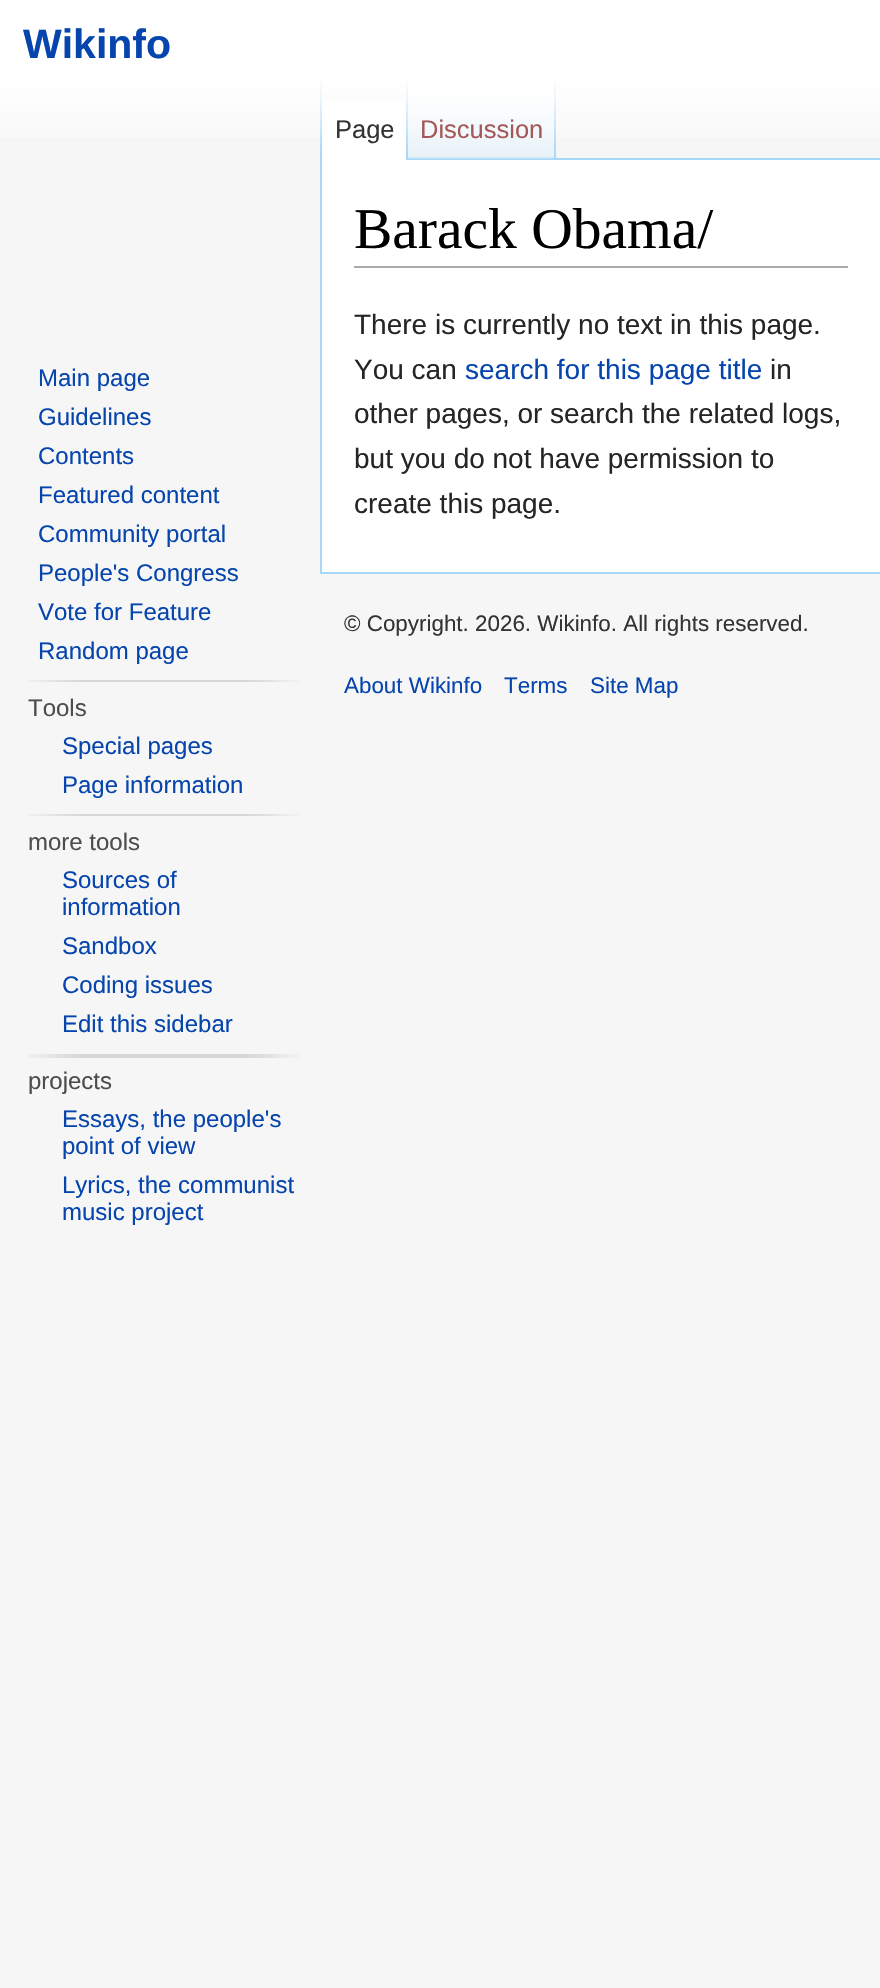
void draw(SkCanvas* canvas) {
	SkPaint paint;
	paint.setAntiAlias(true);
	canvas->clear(0xfff6f6f6);
	{
		const SkColor colors[] = {0xffffffff, 0xfff6f6f6};
		const float stops[] = {0.5, 1};
		const SkPoint ends[] = {{440, 0}, {440, 160}};
		paint.setShader(SkGradientShader::MakeLinear(ends, colors, stops, 2, SkTileMode::kClamp));
		paint.setAlpha(255);
	}
	canvas->drawRect(SkRect::MakeXYWH(0, 0, 880, 138), paint);
	SkFont f1(fontMgr->matchFamilyStyle("Liberation Sans", SkFontStyle::Bold()), 41);
	f1.setSubpixel(true);
	paint.setShader(nullptr);
	paint.setColor(0xff0645ad);
	canvas->drawString("Wikinfo", 23, 58, f1, paint);
	SkFont f2(fontMgr->matchFamilyStyle("Liberation Sans", SkFontStyle::Normal()), 24);
	f2.setSubpixel(true);
	canvas->drawString("Main page", 38, 386, f2, paint);
	canvas->drawString("Guidelines", 38, 425, f2, paint);
	canvas->drawString("Contents", 38, 464, f2, paint);
	canvas->drawString("Featured content", 38, 503, f2, paint);
	canvas->drawString("Community portal", 38, 542, f2, paint);
	canvas->drawString("People's Congress", 38, 581, f2, paint);
	canvas->drawString("Vote for Feature", 38, 620, f2, paint);
	canvas->drawString("Random page", 38, 659, f2, paint);
	canvas->drawImageRect(SkImages::DeferredFromEncodedData(SkData::MakeFromFileName("img1.png")), SkRect::MakeXYWH(27, 680, 272, 2), SkSamplingOptions());
	paint.setColor(0xff4d4d4d);
	canvas->drawString("Tools", 28, 716, f2, paint);
	paint.setColor(0xff0645ad);
	canvas->drawString("Special pages", 62, 754, f2, paint);
	canvas->drawString("Page information", 62, 793, f2, paint);
	canvas->drawImageRect(SkImages::DeferredFromEncodedData(SkData::MakeFromFileName("img1.png")), SkRect::MakeXYWH(27, 814, 272, 2), SkSamplingOptions());
	paint.setColor(0xff4d4d4d);
	canvas->drawString("more tools", 28, 850, f2, paint);
	paint.setColor(0xff0645ad);
	canvas->drawString("Sources of", 62, 888, f2, paint);
	canvas->drawString("information", 62, 915, f2, paint);
	canvas->drawString("Sandbox", 62, 954, f2, paint);
	canvas->drawString("Coding issues", 62, 993, f2, paint);
	canvas->drawString("Edit this sidebar", 62, 1032, f2, paint);
	canvas->drawImageRect(SkImages::DeferredFromEncodedData(SkData::MakeFromFileName("img2.png")), SkRect::MakeXYWH(27, 1054, 272, 4), SkSamplingOptions());
	paint.setColor(0xff4d4d4d);
	canvas->drawString("projects", 28, 1089, f2, paint);
	paint.setColor(0xff0645ad);
	canvas->drawString("Essays, the people's", 62, 1127, f2, paint);
	canvas->drawString("point of view", 62, 1154, f2, paint);
	canvas->drawString("Lyrics, the communist", 62, 1193, f2, paint);
	canvas->drawString("music project", 62, 1220, f2, paint);
	canvas->drawImageRect(SkImages::DeferredFromEncodedData(SkData::MakeFromFileName("img3.png")), SkRect::MakeXYWH(320, 80, 2, 78), SkSamplingOptions());
	paint.setColor(0xffffffff);
	canvas->drawRect(SkRect::MakeXYWH(322, 102, 86, 58), paint);
	canvas->drawImageRect(SkImages::DeferredFromEncodedData(SkData::MakeFromFileName("img4.png")), SkRect::MakeXYWH(406, 81, 2, 79), SkSamplingOptions());
	SkFont f3(fontMgr->matchFamilyStyle("Liberation Sans", SkFontStyle::Normal()), 25.5);
	f3.setSubpixel(true);
	paint.setColor(0xff333333);
	canvas->drawString("Page", 335, 138, f3, paint);
	canvas->drawImageRect(SkImages::DeferredFromEncodedData(SkData::MakeFromFileName("img5.png")), SkRect::MakeXYWH(408, 80, 148, 80), SkSamplingOptions());
	canvas->drawImageRect(SkImages::DeferredFromEncodedData(SkData::MakeFromFileName("img6.png")), SkRect::MakeXYWH(554, 81, 2, 78), SkSamplingOptions());
	paint.setColor(0xffa55858);
	canvas->drawString("Discussion", 420, 138, f3, paint);
	paint.setColor(0xffffffff);
	canvas->drawRect(SkRect::MakeXYWH(322, 160, 558, 412), paint);
	paint.setColor(0xffa7d7f9);
	canvas->drawRect(SkRect::MakeXYWH(556, 158, 324, 2), paint);
	canvas->drawRect(SkRect::MakeXYWH(320, 572, 560, 2), paint);
	canvas->drawRect(SkRect::MakeXYWH(320, 158, 2, 416), paint);
	paint.setColor(0xffaaaaaa);
	canvas->drawRect(SkRect::MakeXYWH(354, 266, 494, 2), paint);
	SkFont f4(fontMgr->matchFamilyStyle("Liberation Serif", SkFontStyle::Normal()), 57.5);
	f4.setSubpixel(true);
	paint.setColor(0xff000000);
	canvas->drawString("Barack Obama/", 354, 248, f4, paint);
	SkFont f5(fontMgr->matchFamilyStyle("Liberation Sans", SkFontStyle::Normal()), 28);
	f5.setSubpixel(true);
	paint.setColor(0xff252525);
	canvas->drawString("There is currently no text in this page.", 354, 334, f5, paint);
	canvas->drawString("You can", 354, 379, f5, paint);
	paint.setColor(0xff0645ad);
	canvas->drawString("search for this page title", 465, 379, f5, paint);
	paint.setColor(0xff252525);
	canvas->drawString("in", 770, 379, f5, paint);
	canvas->drawString("other pages, or search the related logs,", 354, 423, f5, paint);
	canvas->drawString("but you do not have permission to", 354, 468, f5, paint);
	canvas->drawString("create this page.", 354, 513, f5, paint);
	SkFont f6(fontMgr->matchFamilyStyle("Liberation Sans", SkFontStyle::Normal()), 22.4);
	f6.setSubpixel(true);
	paint.setColor(0xff333333);
	canvas->drawString("© Copyright. 2026. Wikinfo. All rights reserved.", 344, 631, f6, paint);
	paint.setColor(0xff0645ad);
	canvas->drawString("About Wikinfo", 344, 693, f6, paint);
	canvas->drawString("Terms", 504, 693, f6, paint);
	canvas->drawString("Site Map", 590, 693, f6, paint);
}
